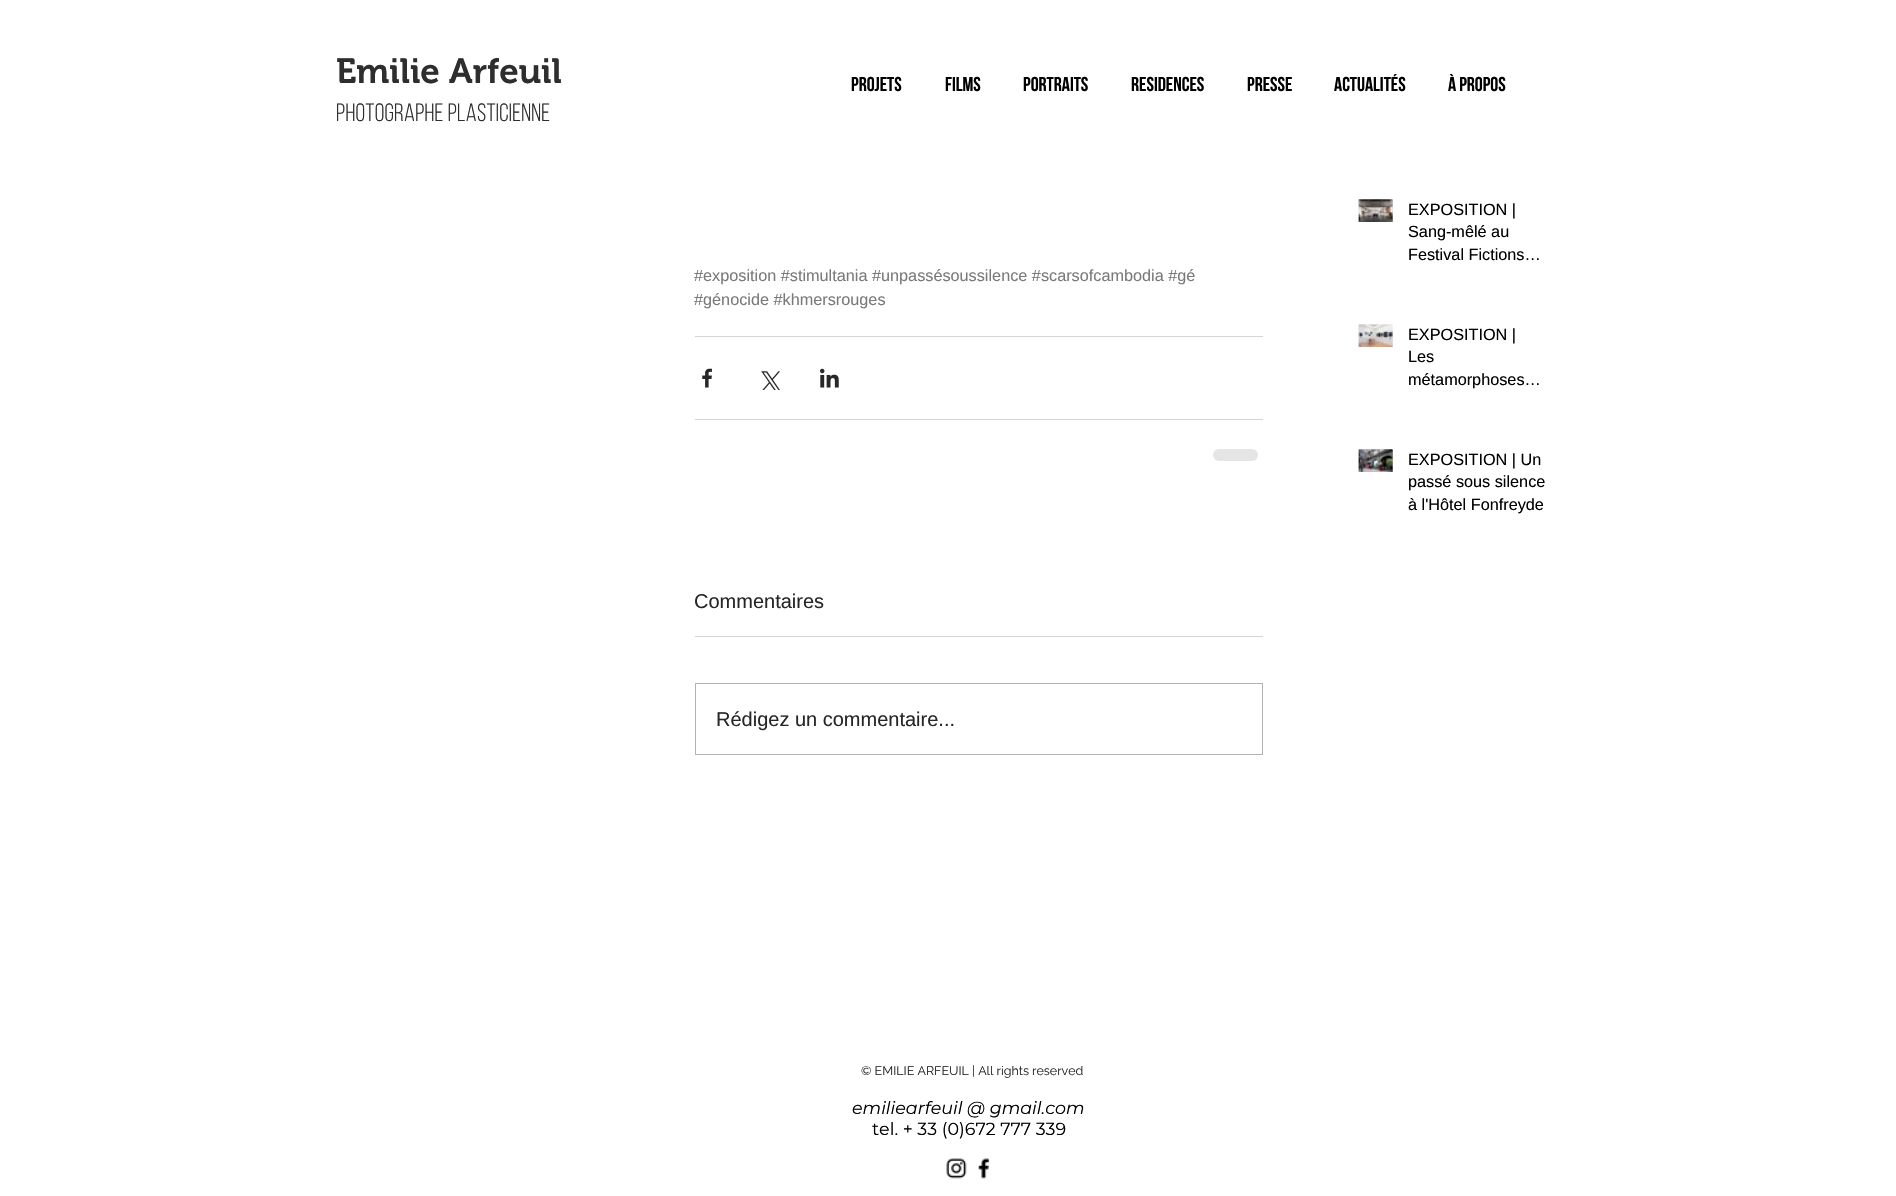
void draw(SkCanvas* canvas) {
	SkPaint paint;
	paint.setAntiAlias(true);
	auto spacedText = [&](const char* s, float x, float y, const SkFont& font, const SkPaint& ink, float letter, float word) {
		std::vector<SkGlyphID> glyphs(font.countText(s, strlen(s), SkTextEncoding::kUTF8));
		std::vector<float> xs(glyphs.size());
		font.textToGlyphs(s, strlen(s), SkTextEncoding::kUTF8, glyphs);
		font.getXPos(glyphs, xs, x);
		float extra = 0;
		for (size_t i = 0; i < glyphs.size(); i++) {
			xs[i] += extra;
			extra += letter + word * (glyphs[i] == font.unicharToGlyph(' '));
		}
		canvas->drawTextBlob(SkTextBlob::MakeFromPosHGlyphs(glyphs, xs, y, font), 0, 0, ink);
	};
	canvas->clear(0xffffffff);
	SkFont f1(fontMgr->matchFamilyStyle("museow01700", SkFontStyle(600, SkFontStyle::kNormal_Width, SkFontStyle::kUpright_Slant)), 35);
	f1.setSubpixel(true);
	paint.setColor(0xff2f2e2e);
	canvas->drawString("Emilie Arfeuil", 336, 83, f1, paint);
	SkFont f2(fontMgr->matchFamilyStyle("Bebas Neue", SkFontStyle::Normal()), 25);
	f2.setSubpixel(true);
	spacedText("PHOTOGRAPHE PLASTICIENNE", 336, 121, f2, paint, 0.25, 0);
	SkFont f3(fontMgr->matchFamilyStyle("Bebas Neue", SkFontStyle::Bold()), 20);
	f3.setSubpixel(true);
	paint.setColor(0xff000000);
	canvas->drawString("PROJETS", 851, 91, f3, paint);
	canvas->drawString("FILMS", 945, 91, f3, paint);
	canvas->drawString("PORTRAITS", 1023, 91, f3, paint);
	canvas->drawString("Residences", 1131, 91, f3, paint);
	canvas->drawString("PRESSE", 1247, 91, f3, paint);
	canvas->drawString("Actualités", 1334, 91, f3, paint);
	canvas->drawString("à propos", 1448, 91, f3, paint);
	SkFont f4(fontMgr->matchFamilyStyle("Liberation Sans", SkFontStyle::Normal()), 16.25);
	f4.setSubpixel(true);
	paint.setColor(0xff7a7a7a);
	canvas->drawString("#exposition #stimultania #unpassésoussilence #scarsofcambodia #gé", 694, 281, f4, paint);
	canvas->drawString("#génocide #khmersrouges", 694, 305, f4, paint);
	paint.setColor(0xffd4d4d4);
	canvas->drawRect(SkRect::MakeXYWH(695, 336, 568, 1), paint);
	canvas->drawImageRect(SkImages::DeferredFromEncodedData(SkData::MakeFromFileName("img1.png")), SkRect::MakeXYWH(702, 368, 10, 20), SkSamplingOptions());
	canvas->drawImageRect(SkImages::DeferredFromEncodedData(SkData::MakeFromFileName("img2.png")), SkRect::MakeXYWH(761, 371, 19, 19), SkSamplingOptions());
	canvas->drawImageRect(SkImages::DeferredFromEncodedData(SkData::MakeFromFileName("img3.png")), SkRect::MakeXYWH(820, 368, 19, 20), SkSamplingOptions());
	canvas->drawRect(SkRect::MakeXYWH(695, 419, 568, 1), paint);
	paint.setColor(0xffe5e5e5);
	canvas->drawRoundRect(SkRect::MakeXYWH(1213, 449, 45, 12), 6, 6, paint);
	SkFont f5(fontMgr->matchFamilyStyle("Liberation Sans", SkFontStyle::Normal()), 20);
	f5.setSubpixel(true);
	paint.setColor(0xff272727);
	canvas->drawString("Commentaires", 694, 608, f5, paint);
	paint.setColor(0xffd4d4d4);
	canvas->drawRect(SkRect::MakeXYWH(695, 636, 568, 1), paint);
	paint.setStroke(true);
	paint.setStrokeWidth(1);
	paint.setColor(0xffb3b3b3);
	canvas->drawRect(SkRect::MakeXYWH(695.5, 683.5, 567, 71), paint);
	paint.setStroke(false);
	paint.setColor(0xff272727);
	canvas->drawString("Rédigez un commentaire...", 716, 726, f5, paint);
	canvas->drawImageRect(SkImages::DeferredFromEncodedData(SkData::MakeFromFileName("img4.png")), SkRect::MakeXYWH(1358, 199, 35, 23), SkSamplingOptions());
	canvas->drawImageRect(SkImages::DeferredFromEncodedData(SkData::MakeFromFileName("img5.png")), SkRect::MakeXYWH(1358, 199, 35, 23), SkSamplingOptions());
	paint.setColor(0xff000000);
	canvas->drawString("EXPOSITION |", 1408, 215, f4, paint);
	canvas->drawString("Sang-mêlé au", 1408, 237, f4, paint);
	canvas->drawString("Festival Fictions…", 1408, 260, f4, paint);
	canvas->drawImageRect(SkImages::DeferredFromEncodedData(SkData::MakeFromFileName("img6.png")), SkRect::MakeXYWH(1358, 324, 35, 23), SkSamplingOptions());
	canvas->drawImageRect(SkImages::DeferredFromEncodedData(SkData::MakeFromFileName("img7.png")), SkRect::MakeXYWH(1358, 324, 35, 23), SkSamplingOptions());
	canvas->drawString("EXPOSITION |", 1408, 340, f4, paint);
	canvas->drawString("Les", 1408, 362, f4, paint);
	canvas->drawString("métamorphoses…", 1408, 385, f4, paint);
	canvas->drawImageRect(SkImages::DeferredFromEncodedData(SkData::MakeFromFileName("img8.png")), SkRect::MakeXYWH(1358, 449, 35, 23), SkSamplingOptions());
	canvas->drawImageRect(SkImages::DeferredFromEncodedData(SkData::MakeFromFileName("img9.png")), SkRect::MakeXYWH(1358, 449, 35, 23), SkSamplingOptions());
	canvas->drawString("EXPOSITION | Un", 1408, 465, f4, paint);
	canvas->drawString("passé sous silence", 1408, 487, f4, paint);
	canvas->drawString("à l'Hôtel Fonfreyde", 1408, 510, f4, paint);
	SkFont f6(fontMgr->matchFamilyStyle("Raleway", SkFontStyle::Normal()), 12.5);
	f6.setSubpixel(true);
	paint.setColor(0xff272727);
	canvas->drawString("© EMILIE ARFEUIL | All rights reserved", 861, 1075, f6, paint);
	SkFont f7(fontMgr->matchFamilyStyle("Montserrat", SkFontStyle::Italic()), 17.5);
	f7.setSubpixel(true);
	paint.setColor(0xff000000);
	canvas->drawString("emiliearfeuil @ gmail.com", 852, 1114, f7, paint);
	SkFont f8(fontMgr->matchFamilyStyle("Montserrat", SkFontStyle::Normal()), 17.5);
	f8.setSubpixel(true);
	canvas->drawString("tel. + 33 (0)672 777 339", 872, 1135, f8, paint);
	canvas->drawImageRect(SkImages::DeferredFromEncodedData(SkData::MakeFromFileName("img10.png")), SkRect::MakeXYWH(946, 1158, 21, 21), SkSamplingOptions());
	canvas->drawImageRect(SkImages::DeferredFromEncodedData(SkData::MakeFromFileName("img11.png")), SkRect::MakeXYWH(978, 1158, 12, 21), SkSamplingOptions());
}
